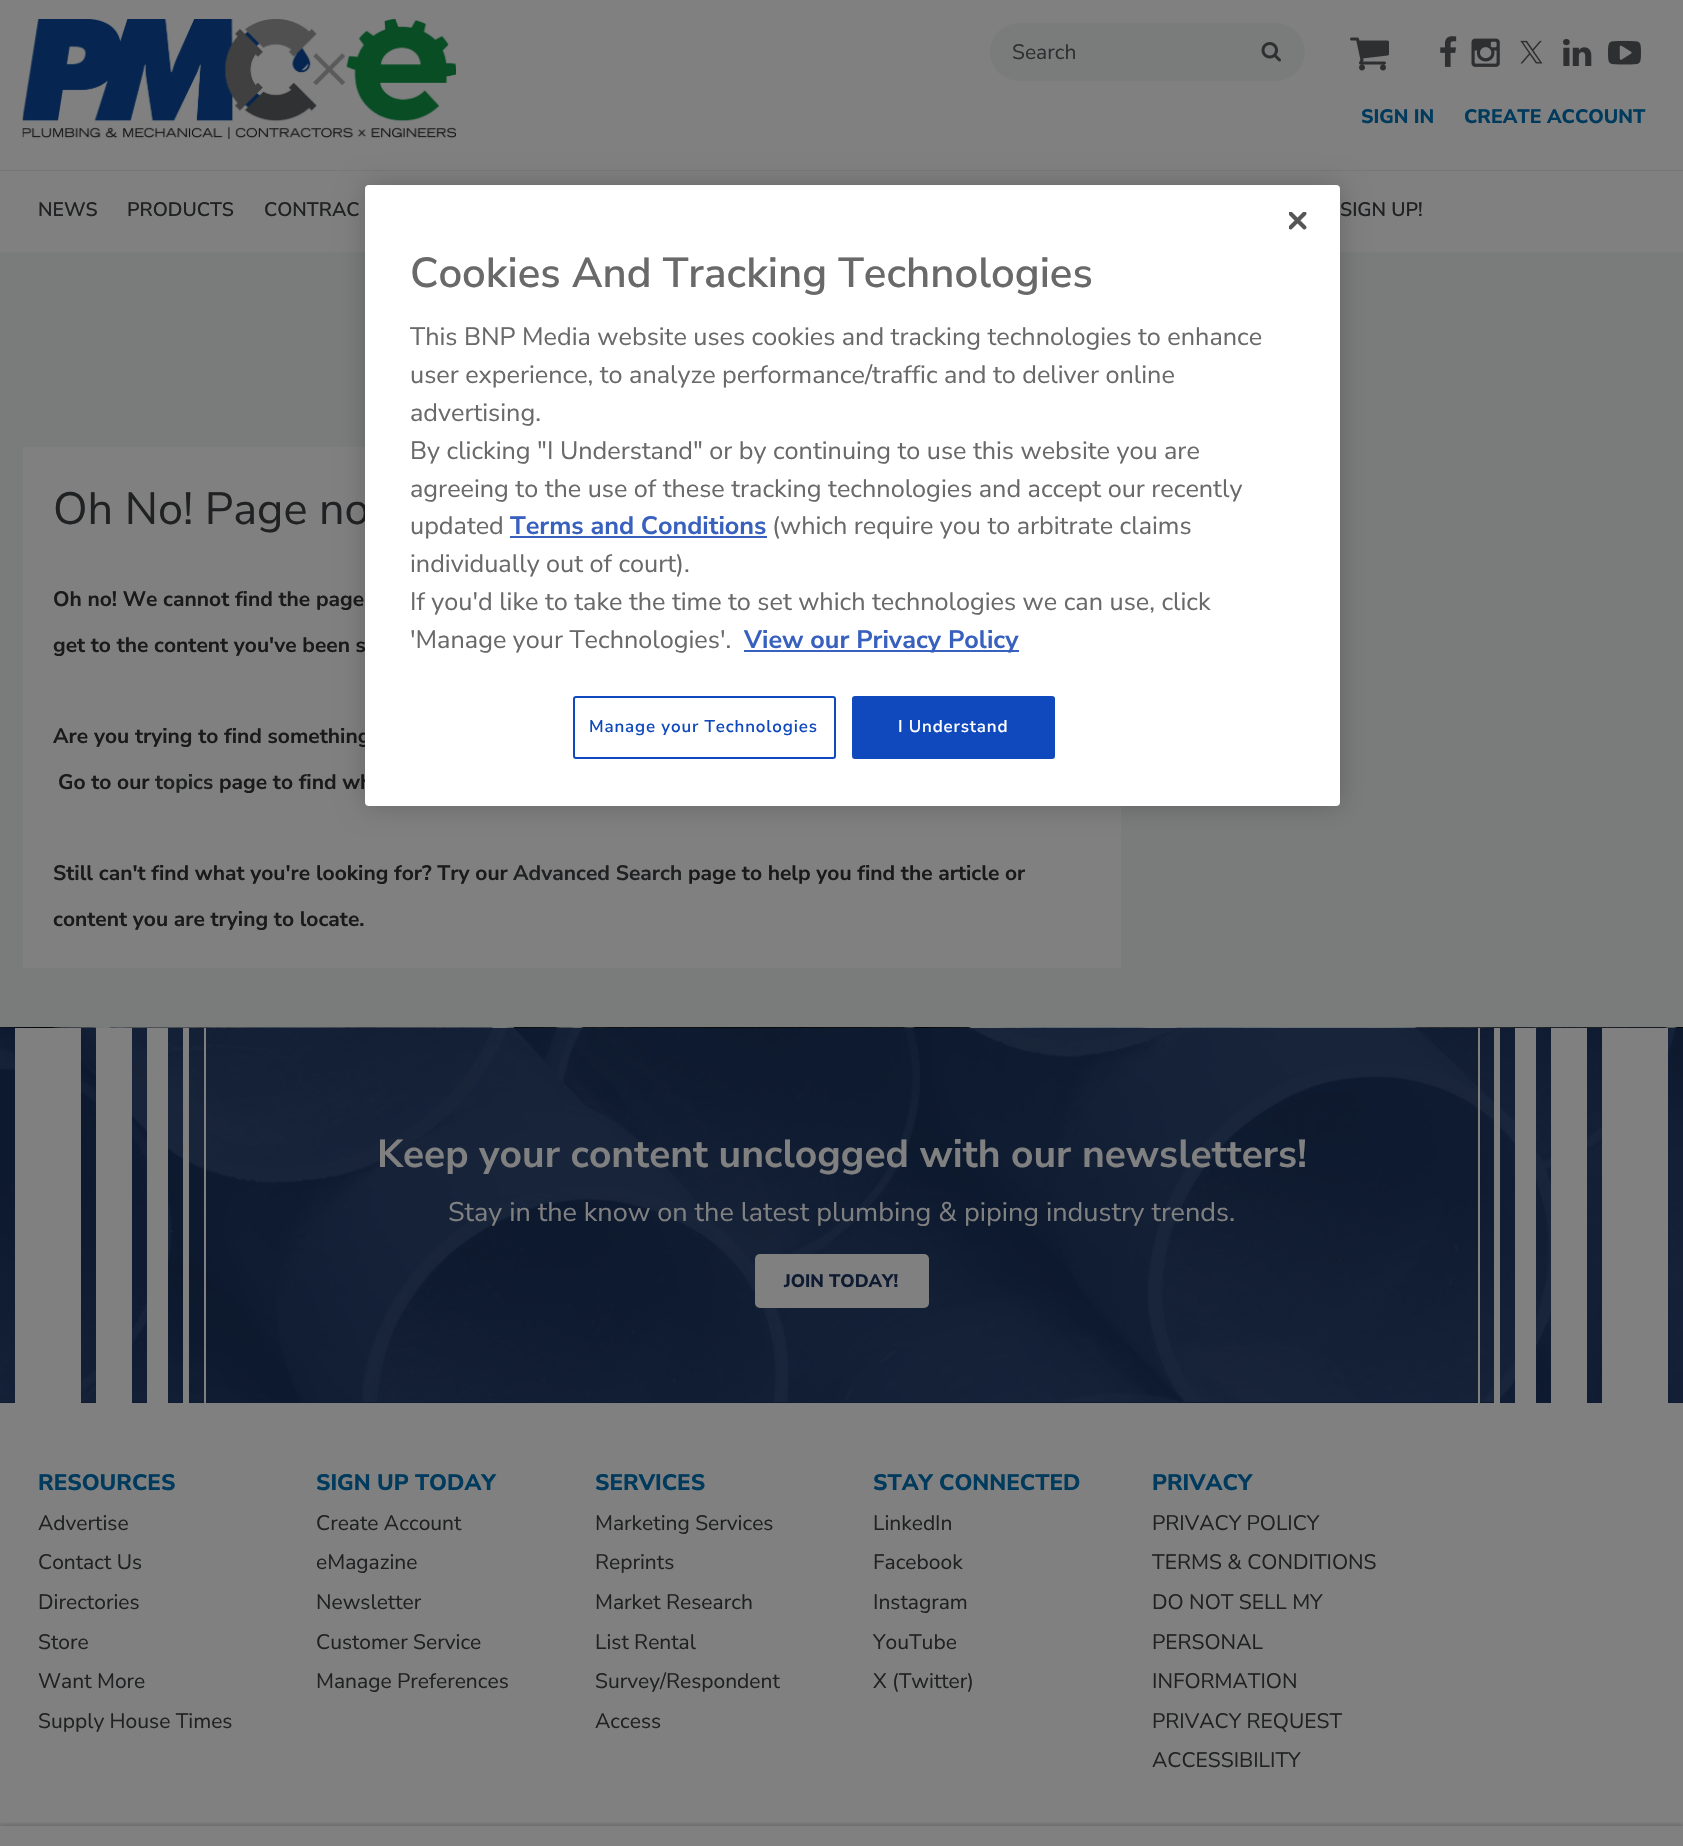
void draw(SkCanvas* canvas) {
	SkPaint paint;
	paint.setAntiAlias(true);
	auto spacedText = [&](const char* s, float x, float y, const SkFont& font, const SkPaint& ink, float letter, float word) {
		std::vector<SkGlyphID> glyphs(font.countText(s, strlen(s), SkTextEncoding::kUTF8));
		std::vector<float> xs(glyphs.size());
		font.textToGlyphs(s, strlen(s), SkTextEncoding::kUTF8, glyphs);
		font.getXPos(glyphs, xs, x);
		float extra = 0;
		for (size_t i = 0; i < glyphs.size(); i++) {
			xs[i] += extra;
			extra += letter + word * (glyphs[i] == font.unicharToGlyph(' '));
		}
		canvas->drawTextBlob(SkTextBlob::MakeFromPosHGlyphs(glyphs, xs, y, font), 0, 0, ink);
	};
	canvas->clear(0xff7a7b7b);
	paint.setColor(0xff808080);
	canvas->drawRect(SkRect::MakeXYWH(0, 0, 1683, 170), paint);
	canvas->drawImageRect(SkImages::DeferredFromEncodedData(SkData::MakeFromFileName("img1.png")), SkRect::MakeXYWH(22, 19, 434, 120), SkSamplingOptions());
	paint.setColor(0xff7a7b7b);
	canvas->drawRoundRect(SkRect::MakeXYWH(990, 23, 315, 58), 29, 29, paint);
	SkFont f1(fontMgr->matchFamilyStyle("Nunito Sans", SkFontStyle::Normal()), 21);
	f1.setSubpixel(true);
	paint.setColor(0xff2f2f31);
	canvas->drawString("Search", 1012, 59, f1, paint);
	canvas->drawImageRect(SkImages::DeferredFromEncodedData(SkData::MakeFromFileName("img2.png")), SkRect::MakeXYWH(1261, 42, 20, 20), SkSamplingOptions());
	canvas->drawImageRect(SkImages::DeferredFromEncodedData(SkData::MakeFromFileName("img3.png")), SkRect::MakeXYWH(1350, 37, 39, 34), SkSamplingOptions());
	canvas->drawImageRect(SkImages::DeferredFromEncodedData(SkData::MakeFromFileName("img4.png")), SkRect::MakeXYWH(1440, 36, 17, 31), SkSamplingOptions());
	canvas->drawImageRect(SkImages::DeferredFromEncodedData(SkData::MakeFromFileName("img5.png")), SkRect::MakeXYWH(1471, 38, 29, 29), SkSamplingOptions());
	canvas->drawImageRect(SkImages::DeferredFromEncodedData(SkData::MakeFromFileName("img6.png")), SkRect::MakeXYWH(1520, 40, 23, 24), SkSamplingOptions());
	canvas->drawImageRect(SkImages::DeferredFromEncodedData(SkData::MakeFromFileName("img7.png")), SkRect::MakeXYWH(1563, 39, 29, 27), SkSamplingOptions());
	canvas->drawImageRect(SkImages::DeferredFromEncodedData(SkData::MakeFromFileName("img8.png")), SkRect::MakeXYWH(1608, 40, 33, 25), SkSamplingOptions());
	SkFont f2(fontMgr->matchFamilyStyle("Nunito Sans", SkFontStyle(800, SkFontStyle::kNormal_Width, SkFontStyle::kUpright_Slant)), 19.5);
	f2.setSubpixel(true);
	paint.setColor(0xff003a5d);
	canvas->drawString("SIGN IN", 1361, 123, f2, paint);
	canvas->drawString("CREATE ACCOUNT", 1464, 123, f2, paint);
	paint.setColor(0xff777777);
	canvas->drawRect(SkRect::MakeXYWH(0, 170, 1683, 1), paint);
	paint.setColor(0xff808080);
	canvas->drawRect(SkRect::MakeXYWH(0, 171, 1683, 81), paint);
	SkFont f3(fontMgr->matchFamilyStyle("Nunito Sans", SkFontStyle(600, SkFontStyle::kNormal_Width, SkFontStyle::kUpright_Slant)), 19.5);
	f3.setSubpixel(true);
	paint.setColor(0xff202122);
	canvas->drawString("NEWS", 38, 216, f3, paint);
	canvas->drawString("PRODUCTS", 127, 216, f3, paint);
	canvas->drawString("CONTRAC", 264, 216, f3, paint);
	canvas->drawString("SIGN UP!", 1340, 216, f3, paint);
	paint.setColor(0xff808080);
	canvas->drawRect(SkRect::MakeXYWH(23, 447, 1098, 521), paint);
	SkFont f4(fontMgr->matchFamilyStyle("Nunito Sans", SkFontStyle::Normal()), 45);
	f4.setSubpixel(true);
	paint.setColor(0xff202122);
	canvas->drawString("Oh No! Page no", 53, 524, f4, paint);
	SkFont f5(fontMgr->matchFamilyStyle("Nunito Sans", SkFontStyle::Bold()), 21);
	f5.setSubpixel(true);
	paint.setColor(0xff1a1a1a);
	canvas->drawString("Oh no! We cannot find the page", 53, 606, f5, paint);
	canvas->drawString("get to the content you've been s", 53, 652, f5, paint);
	canvas->drawString("Are you trying to find something", 53, 743, f5, paint);
	canvas->drawString("Go to our", 58, 789, f5, paint);
	paint.setColor(0xff202122);
	canvas->drawString("topics", 155, 789, f5, paint);
	paint.setColor(0xff1a1a1a);
	canvas->drawString("page to find wh", 219, 789, f5, paint);
	canvas->drawString("Still can't find what you're looking for? Try our", 53, 880, f5, paint);
	paint.setColor(0xff202122);
	canvas->drawString("Advanced Search", 513, 880, f5, paint);
	paint.setColor(0xff1a1a1a);
	canvas->drawString("page to help you find the article or", 688, 880, f5, paint);
	canvas->drawString("content you are trying to locate.", 53, 926, f5, paint);
	paint.setColor(0xff0e1b32);
	canvas->drawRect(SkRect::MakeXYWH(0, 1402, 1683, 1), paint);
	canvas->drawImageRect(SkImages::DeferredFromEncodedData(SkData::MakeFromFileName("img9.png")), SkRect::MakeXYWH(0, 1027, 1683, 375), SkSamplingOptions());
	paint.setColor(0xff808080);
	canvas->drawRect(SkRect::MakeXYWH(15, 1028, 66, 375), paint);
	canvas->drawRect(SkRect::MakeXYWH(96, 1028, 36, 375), paint);
	canvas->drawRect(SkRect::MakeXYWH(147, 1028, 21, 375), paint);
	canvas->drawRect(SkRect::MakeXYWH(183, 1028, 6, 375), paint);
	canvas->drawRect(SkRect::MakeXYWH(204, 1028, 2, 375), paint);
	SkFont f6(fontMgr->matchFamilyStyle("Nunito Sans", SkFontStyle::Bold()), 39);
	f6.setSubpixel(true);
	canvas->drawString("Keep your content unclogged with our newsletters!", 377, 1167, f6, paint);
	SkFont f7(fontMgr->matchFamilyStyle("Nunito Sans", SkFontStyle::Normal()), 27);
	f7.setSubpixel(true);
	canvas->drawString("Stay in the know on the latest plumbing & piping industry trends.", 448, 1221, f7, paint);
	canvas->drawRoundRect(SkRect::MakeXYWH(755, 1254, 174, 54), 5, 5, paint);
	SkFont f8(fontMgr->matchFamilyStyle("Nunito Sans", SkFontStyle(800, SkFontStyle::kNormal_Width, SkFontStyle::kUpright_Slant)), 18);
	f8.setSubpixel(true);
	paint.setColor(0xff0e1b32);
	canvas->drawString("JOIN TODAY!", 784, 1287, f8, paint);
	paint.setColor(0xff808080);
	canvas->drawRect(SkRect::MakeXYWH(1478, 1028, 2, 375), paint);
	canvas->drawRect(SkRect::MakeXYWH(1494, 1028, 6, 375), paint);
	canvas->drawRect(SkRect::MakeXYWH(1515, 1028, 21, 375), paint);
	canvas->drawRect(SkRect::MakeXYWH(1551, 1028, 36, 375), paint);
	canvas->drawRect(SkRect::MakeXYWH(1602, 1028, 66, 375), paint);
	canvas->drawRect(SkRect::MakeXYWH(0, 1403, 1683, 443), paint);
	SkFont f9(fontMgr->matchFamilyStyle("Nunito Sans", SkFontStyle(800, SkFontStyle::kNormal_Width, SkFontStyle::kUpright_Slant)), 22.5);
	f9.setSubpixel(true);
	paint.setColor(0xff003a5d);
	canvas->drawString("RESOURCES", 38, 1490, f9, paint);
	paint.setColor(0xff202122);
	canvas->drawString("Advertise", 38, 1530, f1, paint);
	canvas->drawString("Contact Us", 38, 1569, f1, paint);
	canvas->drawString("Directories", 38, 1609, f1, paint);
	canvas->drawString("Store", 38, 1649, f1, paint);
	canvas->drawString("Want More", 38, 1688, f1, paint);
	canvas->drawString("Supply House Times", 38, 1728, f1, paint);
	paint.setColor(0xff003a5d);
	canvas->drawString("SIGN UP TODAY", 316, 1490, f9, paint);
	paint.setColor(0xff202122);
	canvas->drawString("Create Account", 316, 1530, f1, paint);
	canvas->drawString("eMagazine", 316, 1569, f1, paint);
	canvas->drawString("Newsletter", 316, 1609, f1, paint);
	canvas->drawString("Customer Service", 316, 1649, f1, paint);
	canvas->drawString("Manage Preferences", 316, 1688, f1, paint);
	paint.setColor(0xff003a5d);
	canvas->drawString("SERVICES", 595, 1490, f9, paint);
	paint.setColor(0xff202122);
	canvas->drawString("Marketing Services", 595, 1530, f1, paint);
	canvas->drawString("Reprints", 595, 1569, f1, paint);
	canvas->drawString("Market Research", 595, 1609, f1, paint);
	canvas->drawString("List Rental", 595, 1649, f1, paint);
	canvas->drawString("Survey/Respondent", 595, 1688, f1, paint);
	canvas->drawString("Access", 595, 1728, f1, paint);
	paint.setColor(0xff003a5d);
	canvas->drawString("STAY CONNECTED", 873, 1490, f9, paint);
	paint.setColor(0xff202122);
	canvas->drawString("LinkedIn", 873, 1530, f1, paint);
	canvas->drawString("Facebook", 873, 1569, f1, paint);
	canvas->drawString("Instagram", 873, 1609, f1, paint);
	canvas->drawString("YouTube", 873, 1649, f1, paint);
	canvas->drawString("X (Twitter)", 873, 1688, f1, paint);
	paint.setColor(0xff003a5d);
	canvas->drawString("PRIVACY", 1152, 1490, f9, paint);
	paint.setColor(0xff202122);
	canvas->drawString("PRIVACY POLICY", 1152, 1530, f1, paint);
	canvas->drawString("TERMS & CONDITIONS", 1152, 1569, f1, paint);
	canvas->drawString("DO NOT SELL MY", 1152, 1609, f1, paint);
	canvas->drawString("PERSONAL", 1152, 1649, f1, paint);
	canvas->drawString("INFORMATION", 1152, 1688, f1, paint);
	canvas->drawString("PRIVACY REQUEST", 1152, 1728, f1, paint);
	canvas->drawString("ACCESSIBILITY", 1152, 1767, f1, paint);
	canvas->save();
	canvas->clipRect(SkRect::MakeXYWH(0, 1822, 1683, 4));
	paint.setColor(0x26000000);
	paint.setMaskFilter(SkMaskFilter::MakeBlur(kNormal_SkBlurStyle, 1.5));
	canvas->drawRect(SkRect::MakeXYWH(0, 1824, 1683, 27), paint);
	paint.setMaskFilter(nullptr);
	canvas->restore();
	paint.setColor(0x33000000);
	paint.setMaskFilter(SkMaskFilter::MakeBlur(kNormal_SkBlurStyle, 13.5));
	canvas->drawRoundRect(SkRect::MakeXYWH(365, 185, 975, 621), 4, 4, paint);
	paint.setMaskFilter(nullptr);
	paint.setColor(0xffffffff);
	canvas->drawRoundRect(SkRect::MakeXYWH(365, 185, 975, 621), 4, 4, paint);
	canvas->drawImageRect(SkImages::DeferredFromEncodedData(SkData::MakeFromFileName("img10.png")), SkRect::MakeXYWH(1289, 212, 18, 18), SkSamplingOptions());
	SkFont f10(fontMgr->matchFamilyStyle("Nunito Sans", SkFontStyle(600, SkFontStyle::kNormal_Width, SkFontStyle::kUpright_Slant)), 42);
	f10.setSubpixel(true);
	paint.setColor(0xff696969);
	canvas->drawString("Cookies And Tracking Technologies", 410, 287, f10, paint);
	SkFont f11(fontMgr->matchFamilyStyle("Nunito Sans", SkFontStyle::Normal()), 25.2);
	f11.setSubpixel(true);
	canvas->drawString("This BNP Media website uses cookies and tracking technologies to enhance", 410, 345, f11, paint);
	canvas->drawString("user experience, to analyze performance/traffic and to deliver online", 410, 383, f11, paint);
	canvas->drawString("advertising.", 410, 421, f11, paint);
	canvas->drawString("By clicking \"I Understand\" or by continuing to use this website you are", 410, 459, f11, paint);
	canvas->drawString("agreeing to the use of these tracking technologies and accept our recently", 410, 497, f11, paint);
	canvas->drawString("updated", 410, 534, f11, paint);
	SkFont f12(fontMgr->matchFamilyStyle("Nunito Sans", SkFontStyle::Bold()), 25.2);
	f12.setSubpixel(true);
	paint.setColor(0xff3860be);
	canvas->drawString("Terms and Conditions", 510, 534, f12, paint);
	canvas->drawRect(SkRect::MakeXYWH(510, 536, 257, 2), paint);
	paint.setColor(0xff696969);
	canvas->drawString("(which require you to arbitrate claims", 772, 534, f11, paint);
	canvas->drawString("individually out of court).", 410, 572, f11, paint);
	canvas->drawString("If you'd like to take the time to set which technologies we can use, click", 410, 610, f11, paint);
	canvas->drawString("'Manage your Technologies'.", 410, 648, f11, paint);
	paint.setColor(0xff3860be);
	canvas->drawRect(SkRect::MakeXYWH(744, 650, 275, 2), paint);
	canvas->drawString("View our Privacy Policy", 744, 648, f12, paint);
	paint.setStroke(true);
	paint.setStrokeWidth(2);
	paint.setColor(0xff0f49bd);
	canvas->drawRoundRect(SkRect::MakeXYWH(574, 697, 261, 61), 2, 2, paint);
	SkFont f13(fontMgr->matchFamilyStyle("Nunito Sans", SkFontStyle(600, SkFontStyle::kNormal_Width, SkFontStyle::kUpright_Slant)), 17);
	f13.setSubpixel(true);
	paint.setStroke(false);
	spacedText("Manage your Technologies", 589, 732, f13, paint, 0.85, 0);
	canvas->drawRoundRect(SkRect::MakeXYWH(853, 697, 201, 61), 2, 2, paint);
	paint.setStroke(true);
	canvas->drawRoundRect(SkRect::MakeXYWH(853, 697, 201, 61), 2, 2, paint);
	paint.setStroke(false);
	paint.setColor(0xffffffff);
	spacedText("I Understand", 898, 732, f13, paint, 0.85, 0);
}
